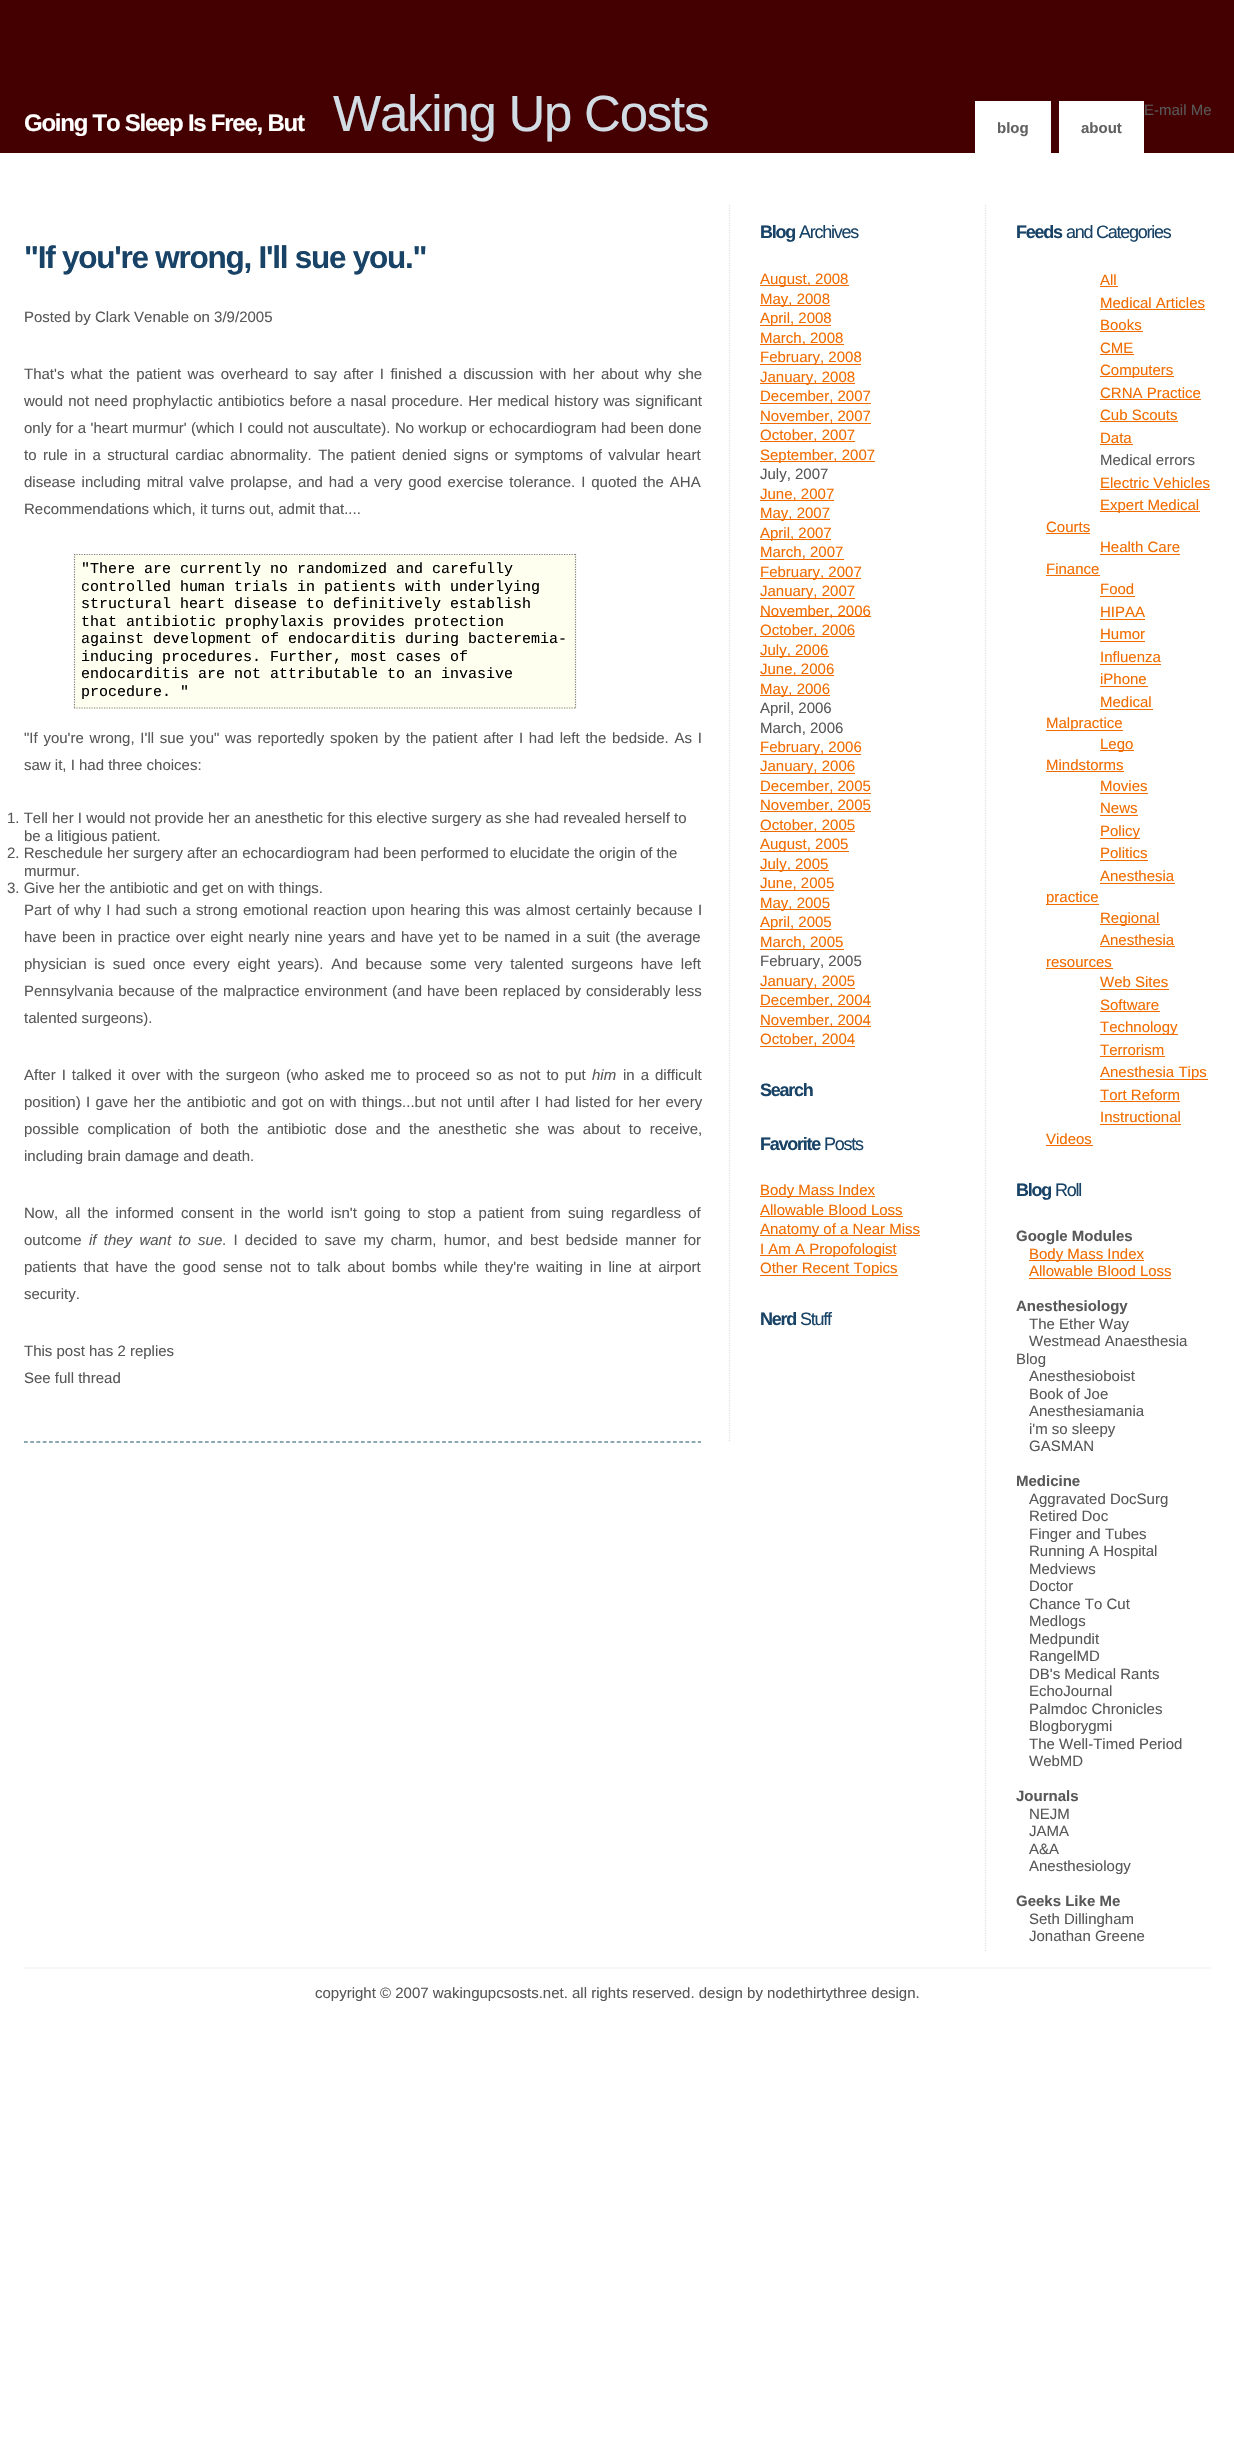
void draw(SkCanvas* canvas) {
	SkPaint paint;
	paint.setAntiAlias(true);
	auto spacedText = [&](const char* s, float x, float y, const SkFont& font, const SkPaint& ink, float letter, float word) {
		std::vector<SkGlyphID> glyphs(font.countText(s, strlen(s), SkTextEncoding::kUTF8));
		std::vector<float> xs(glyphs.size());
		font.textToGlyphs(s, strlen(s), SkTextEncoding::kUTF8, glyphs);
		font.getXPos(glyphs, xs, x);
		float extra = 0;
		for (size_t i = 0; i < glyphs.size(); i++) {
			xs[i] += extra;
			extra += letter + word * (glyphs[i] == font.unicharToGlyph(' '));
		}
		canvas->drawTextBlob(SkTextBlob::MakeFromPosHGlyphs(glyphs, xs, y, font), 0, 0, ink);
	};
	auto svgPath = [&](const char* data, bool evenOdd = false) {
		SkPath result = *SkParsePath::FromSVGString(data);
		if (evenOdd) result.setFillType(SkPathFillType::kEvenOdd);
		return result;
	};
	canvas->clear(0xffffffff);
	paint.setColor(0xff440000);
	canvas->drawRect(SkRect::MakeXYWH(0, 0, 1234, 153), paint);
	SkFont f1(fontMgr->matchFamilyStyle("Liberation Sans", SkFontStyle::Bold()), 24);
	f1.setSubpixel(true);
	paint.setColor(0xffffffff);
	spacedText("Going To Sleep Is Free, But", 24, 131, f1, paint, -1.25, 0);
	SkFont f2(fontMgr->matchFamilyStyle("Liberation Sans", SkFontStyle::Normal()), 51);
	f2.setSubpixel(true);
	paint.setColor(0xffd2dce5);
	spacedText("Waking Up Costs", 333, 131, f2, paint, -1.25, 0);
	SkFont f3(fontMgr->matchFamilyStyle("Liberation Sans", SkFontStyle::Normal()), 15);
	f3.setSubpixel(true);
	paint.setColor(0xff585858);
	canvas->drawString("E-mail Me", 1144, 115, f3, paint);
	paint.setColor(0xffffffff);
	canvas->drawRect(SkRect::MakeXYWH(975, 101, 76, 52), paint);
	SkFont f4(fontMgr->matchFamilyStyle("Liberation Sans", SkFontStyle::Bold()), 15);
	f4.setSubpixel(true);
	paint.setColor(0xff616161);
	canvas->drawString("blog", 997, 133, f4, paint);
	paint.setColor(0xffffffff);
	canvas->drawRect(SkRect::MakeXYWH(1059, 101, 85, 52), paint);
	paint.setColor(0xff616161);
	canvas->drawString("about", 1081, 133, f4, paint);
	paint.setStroke(true);
	paint.setStrokeWidth(1.2);
	paint.setColor(0xff174f66);
	paint.setPathEffect(SkDashPathEffect::Make({{3.75f, 2.49f}}, 0));
	canvas->drawPath(svgPath("M24 1442H701"), paint);
	paint.setPathEffect(nullptr);
	SkFont f5(fontMgr->matchFamilyStyle("Liberation Sans", SkFontStyle::Bold()), 31.5);
	f5.setSubpixel(true);
	paint.setStroke(false);
	paint.setColor(0xff184366);
	spacedText("\"If you're wrong, I'll sue you.\"", 24, 268, f5, paint, -1.25, 0);
	paint.setColor(0xff585858);
	canvas->drawString("Posted by Clark Venable on 3/9/2005", 24, 322, f3, paint);
	spacedText("That's what the patient was overheard to say after I finished a discussion with her about why she", 24, 379, f3, paint, 0, 2.25);
	spacedText("would not need prophylactic antibiotics before a nasal procedure. Her medical history was significant", 24, 406, f3, paint, 0, 0.9);
	spacedText("only for a 'heart murmur' (which I could not auscultate). No workup or echocardiogram had been done", 24, 433, f3, paint, 0, 0.25);
	spacedText("to rule in a structural cardiac abnormality. The patient denied signs or symptoms of valvular heart", 24, 460, f3, paint, 0, 2.25);
	spacedText("disease including mitral valve prolapse, and had a very good exercise tolerance. I quoted the AHA", 24, 487, f3, paint, 0, 1.75);
	canvas->drawString("Recommendations which, it turns out, admit that....", 24, 514, f3, paint);
	paint.setColor(0xfffffff0);
	canvas->drawRect(SkRect::MakeXYWH(74, 554, 502, 155), paint);
	paint.setStroke(true);
	paint.setColor(0xff808080);
	paint.setPathEffect(SkDashPathEffect::Make({{1.25f, 1.25f}}, 0));
	canvas->drawPath(svgPath("M74 554.5H576"), paint);
	paint.setPathEffect(nullptr);
	paint.setPathEffect(SkDashPathEffect::Make({{1.25f, 1.25f}}, 0));
	canvas->drawPath(svgPath("M575.5 554V709"), paint);
	paint.setPathEffect(nullptr);
	paint.setPathEffect(SkDashPathEffect::Make({{1.25f, 1.25f}}, 0));
	canvas->drawPath(svgPath("M74 708H576"), paint);
	paint.setPathEffect(nullptr);
	paint.setPathEffect(SkDashPathEffect::Make({{1.25f, 1.25f}}, 0));
	canvas->drawPath(svgPath("M74.5 554V709"), paint);
	paint.setPathEffect(nullptr);
	SkFont f6(fontMgr->matchFamilyStyle("Liberation Mono", SkFontStyle::Normal()), 15);
	f6.setSubpixel(true);
	paint.setStroke(false);
	paint.setColor(0xff000000);
	canvas->drawString("\"There are currently no randomized and carefully", 81, 573, f6, paint);
	canvas->drawString("controlled human trials in patients with underlying", 81, 591, f6, paint);
	canvas->drawString("structural heart disease to definitively establish", 81, 608, f6, paint);
	canvas->drawString("that antibiotic prophylaxis provides protection", 81, 626, f6, paint);
	canvas->drawString("against development of endocarditis during bacteremia-", 81, 643, f6, paint);
	canvas->drawString("inducing procedures. Further, most cases of", 81, 661, f6, paint);
	canvas->drawString("endocarditis are not attributable to an invasive", 81, 678, f6, paint);
	canvas->drawString("procedure. \"", 81, 696, f6, paint);
	paint.setColor(0xff585858);
	spacedText("\"If you're wrong, I'll sue you\" was reportedly spoken by the patient after I had left the bedside. As I", 24, 743, f3, paint, 0, 1.6);
	canvas->drawString("saw it, I had three choices:", 24, 770, f3, paint);
	canvas->drawString("1. Tell her I would not provide her an anesthetic for this elective surgery as she had revealed herself to", 7, 823, f3, paint);
	canvas->drawString("be a litigious patient.", 24, 841, f3, paint);
	canvas->drawString("2. Reschedule her surgery after an echocardiogram had been performed to elucidate the origin of the", 7, 858, f3, paint);
	canvas->drawString("murmur.", 24, 876, f3, paint);
	canvas->drawString("3. Give her the antibiotic and get on with things.", 7, 893, f3, paint);
	spacedText("Part of why I had such a strong emotional reaction upon hearing this was almost certainly because I", 24, 915, f3, paint, 0, 1);
	spacedText("have been in practice over eight nearly nine years and have yet to be named in a suit (the average", 24, 942, f3, paint, 0, 1.25);
	spacedText("physician is sued once every eight years). And because some very talented surgeons have left", 24, 969, f3, paint, 0, 3.5);
	spacedText("Pennsylvania because of the malpractice environment (and have been replaced by considerably less", 24, 996, f3, paint, 0, 0.75);
	canvas->drawString("talented surgeons).", 24, 1023, f3, paint);
	spacedText("After I talked it over with the surgeon (who asked me to proceed so as not to put", 24, 1080, f3, paint, 0, 1.8);
	SkFont f7(fontMgr->matchFamilyStyle("Liberation Sans", SkFontStyle::Italic()), 15);
	f7.setSubpixel(true);
	canvas->drawString("him", 592, 1080, f7, paint);
	spacedText("in a difficult", 623, 1080, f3, paint, 0, 1.8);
	spacedText("position) I gave her the antibiotic and got on with things...but not until after I had listed for her every", 24, 1107, f3, paint, 0, 1.2);
	spacedText("possible complication of both the antibiotic dose and the anesthetic she was about to receive,", 24, 1134, f3, paint, 0, 4.25);
	canvas->drawString("including brain damage and death.", 24, 1161, f3, paint);
	spacedText("Now, all the informed consent in the world isn't going to stop a patient from suing regardless of", 24, 1218, f3, paint, 0, 3);
	canvas->drawString("outcome", 24, 1245, f3, paint);
	spacedText("if they want to sue", 89, 1245, f7, paint, 0, 3.1);
	spacedText(". I decided to save my charm, humor, and best bedside manner for", 222, 1245, f3, paint, 0, 3.1);
	spacedText("patients that have the good sense not to talk about bombs while they're waiting in line at airport", 24, 1272, f3, paint, 0, 2.75);
	canvas->drawString("security.", 24, 1299, f3, paint);
	canvas->drawString("This post has 2 replies", 24, 1356, f3, paint);
	canvas->drawString("See full thread", 24, 1383, f3, paint);
	paint.setStroke(true);
	paint.setColor(0xffe1e1e1);
	paint.setPathEffect(SkDashPathEffect::Make({{1.25f, 1.25f}}, 0));
	canvas->drawPath(svgPath("M729.5 205V1442.5"), paint);
	paint.setPathEffect(nullptr);
	SkFont f8(fontMgr->matchFamilyStyle("Liberation Sans", SkFontStyle::Bold()), 18);
	f8.setSubpixel(true);
	paint.setStroke(false);
	paint.setColor(0xff184366);
	spacedText("Blog", 760, 238, f8, paint, -1.25, 0);
	SkFont f9(fontMgr->matchFamilyStyle("Liberation Sans", SkFontStyle::Normal()), 18);
	f9.setSubpixel(true);
	spacedText("Archives", 799, 238, f9, paint, -1.25, 0);
	paint.setColor(0xfff16c00);
	canvas->drawRect(SkRect::MakeXYWH(760, 285, 89, 1), paint);
	canvas->drawString("August, 2008", 760, 284, f3, paint);
	canvas->drawRect(SkRect::MakeXYWH(760, 305, 70, 1), paint);
	canvas->drawString("May, 2008", 760, 304, f3, paint);
	canvas->drawRect(SkRect::MakeXYWH(760, 325, 71, 1), paint);
	canvas->drawString("April, 2008", 760, 323, f3, paint);
	canvas->drawRect(SkRect::MakeXYWH(760, 344, 84, 1), paint);
	canvas->drawString("March, 2008", 760, 343, f3, paint);
	canvas->drawRect(SkRect::MakeXYWH(760, 364, 101, 1), paint);
	canvas->drawString("February, 2008", 760, 362, f3, paint);
	canvas->drawRect(SkRect::MakeXYWH(760, 383, 95, 1), paint);
	canvas->drawString("January, 2008", 760, 382, f3, paint);
	canvas->drawString("December, 2007", 760, 401, f3, paint);
	canvas->drawRect(SkRect::MakeXYWH(760, 403, 111, 1), paint);
	canvas->drawString("November, 2007", 760, 421, f3, paint);
	canvas->drawRect(SkRect::MakeXYWH(760, 423, 111, 1), paint);
	canvas->drawRect(SkRect::MakeXYWH(760, 441, 95, 1), paint);
	canvas->drawString("October, 2007", 760, 440, f3, paint);
	canvas->drawRect(SkRect::MakeXYWH(760, 461, 115, 1), paint);
	canvas->drawString("September, 2007", 760, 460, f3, paint);
	paint.setColor(0xff585858);
	canvas->drawString("July, 2007", 760, 479, f3, paint);
	paint.setColor(0xfff16c00);
	canvas->drawRect(SkRect::MakeXYWH(760, 500, 74, 1), paint);
	canvas->drawString("June, 2007", 760, 499, f3, paint);
	canvas->drawRect(SkRect::MakeXYWH(760, 519, 70, 1), paint);
	canvas->drawString("May, 2007", 760, 518, f3, paint);
	canvas->drawRect(SkRect::MakeXYWH(760, 539, 71, 1), paint);
	canvas->drawString("April, 2007", 760, 538, f3, paint);
	canvas->drawString("March, 2007", 760, 557, f3, paint);
	canvas->drawRect(SkRect::MakeXYWH(760, 559, 84, 1), paint);
	canvas->drawRect(SkRect::MakeXYWH(760, 578, 101, 1), paint);
	canvas->drawString("February, 2007", 760, 577, f3, paint);
	canvas->drawRect(SkRect::MakeXYWH(760, 598, 95, 1), paint);
	canvas->drawString("January, 2007", 760, 596, f3, paint);
	canvas->drawRect(SkRect::MakeXYWH(760, 616, 111, 1), paint);
	canvas->drawString("November, 2006", 760, 616, f3, paint);
	canvas->drawRect(SkRect::MakeXYWH(760, 636, 95, 1), paint);
	canvas->drawString("October, 2006", 760, 635, f3, paint);
	canvas->drawRect(SkRect::MakeXYWH(760, 656, 69, 1), paint);
	canvas->drawString("July, 2006", 760, 655, f3, paint);
	canvas->drawRect(SkRect::MakeXYWH(760, 675, 74, 1), paint);
	canvas->drawString("June, 2006", 760, 674, f3, paint);
	canvas->drawRect(SkRect::MakeXYWH(760, 695, 70, 1), paint);
	canvas->drawString("May, 2006", 760, 694, f3, paint);
	paint.setColor(0xff585858);
	canvas->drawString("April, 2006", 760, 713, f3, paint);
	canvas->drawString("March, 2006", 760, 733, f3, paint);
	paint.setColor(0xfff16c00);
	canvas->drawRect(SkRect::MakeXYWH(760, 754, 101, 1), paint);
	canvas->drawString("February, 2006", 760, 752, f3, paint);
	canvas->drawRect(SkRect::MakeXYWH(760, 773, 95, 1), paint);
	canvas->drawString("January, 2006", 760, 771, f3, paint);
	canvas->drawString("December, 2005", 760, 791, f3, paint);
	canvas->drawRect(SkRect::MakeXYWH(760, 793, 111, 1), paint);
	canvas->drawRect(SkRect::MakeXYWH(760, 811, 111, 1), paint);
	canvas->drawString("November, 2005", 760, 810, f3, paint);
	canvas->drawRect(SkRect::MakeXYWH(760, 831, 95, 1), paint);
	canvas->drawString("October, 2005", 760, 830, f3, paint);
	canvas->drawRect(SkRect::MakeXYWH(760, 851, 89, 1), paint);
	canvas->drawString("August, 2005", 760, 849, f3, paint);
	canvas->drawRect(SkRect::MakeXYWH(760, 870, 69, 1), paint);
	canvas->drawString("July, 2005", 760, 869, f3, paint);
	canvas->drawString("June, 2005", 760, 888, f3, paint);
	canvas->drawRect(SkRect::MakeXYWH(760, 890, 74, 1), paint);
	canvas->drawRect(SkRect::MakeXYWH(760, 909, 70, 1), paint);
	canvas->drawString("May, 2005", 760, 908, f3, paint);
	canvas->drawRect(SkRect::MakeXYWH(760, 929, 71, 1), paint);
	canvas->drawString("April, 2005", 760, 927, f3, paint);
	canvas->drawString("March, 2005", 760, 947, f3, paint);
	canvas->drawRect(SkRect::MakeXYWH(760, 949, 84, 1), paint);
	paint.setColor(0xff585858);
	canvas->drawString("February, 2005", 760, 966, f3, paint);
	paint.setColor(0xfff16c00);
	canvas->drawRect(SkRect::MakeXYWH(760, 988, 95, 1), paint);
	canvas->drawString("January, 2005", 760, 986, f3, paint);
	canvas->drawRect(SkRect::MakeXYWH(760, 1006, 111, 1), paint);
	canvas->drawString("December, 2004", 760, 1005, f3, paint);
	canvas->drawRect(SkRect::MakeXYWH(760, 1026, 111, 1), paint);
	canvas->drawString("November, 2004", 760, 1025, f3, paint);
	canvas->drawString("October, 2004", 760, 1044, f3, paint);
	canvas->drawRect(SkRect::MakeXYWH(760, 1046, 95, 1), paint);
	paint.setColor(0xff184366);
	spacedText("Search", 760, 1096, f8, paint, -1.25, 0);
	spacedText("Favorite", 760, 1150, f8, paint, -1.25, 0);
	spacedText("Posts", 824, 1150, f9, paint, -1.25, 0);
	paint.setColor(0xfff16c00);
	canvas->drawRect(SkRect::MakeXYWH(760, 1196, 115, 1), paint);
	canvas->drawString("Body Mass Index", 760, 1195, f3, paint);
	canvas->drawString("Allowable Blood Loss", 760, 1215, f3, paint);
	canvas->drawRect(SkRect::MakeXYWH(760, 1216, 143, 1), paint);
	canvas->drawRect(SkRect::MakeXYWH(760, 1235, 160, 1), paint);
	canvas->drawString("Anatomy of a Near Miss", 760, 1234, f3, paint);
	canvas->drawRect(SkRect::MakeXYWH(760, 1255, 136, 1), paint);
	canvas->drawString("I Am A Propofologist", 760, 1254, f3, paint);
	canvas->drawRect(SkRect::MakeXYWH(760, 1275, 138, 1), paint);
	canvas->drawString("Other Recent Topics", 760, 1273, f3, paint);
	paint.setColor(0xff184366);
	spacedText("Nerd", 760, 1325, f8, paint, -1.25, 0);
	spacedText("Stuff", 800, 1325, f9, paint, -1.25, 0);
	paint.setStroke(true);
	paint.setColor(0xffe1e1e1);
	paint.setPathEffect(SkDashPathEffect::Make({{1.25f, 1.25f}}, 0));
	canvas->drawPath(svgPath("M985.5 205V1952.5"), paint);
	paint.setPathEffect(nullptr);
	paint.setStroke(false);
	paint.setColor(0xff184366);
	spacedText("Feeds", 1016, 238, f8, paint, -1.25, 0);
	spacedText("and Categories", 1066, 238, f9, paint, -1.25, 0);
	paint.setColor(0xfff16c00);
	canvas->drawString("All", 1100, 285, f3, paint);
	canvas->drawRect(SkRect::MakeXYWH(1100, 286, 18, 1), paint);
	canvas->drawString("Medical Articles", 1100, 308, f3, paint);
	canvas->drawRect(SkRect::MakeXYWH(1100, 309, 105, 1), paint);
	canvas->drawString("Books", 1100, 330, f3, paint);
	canvas->drawRect(SkRect::MakeXYWH(1100, 331, 43, 1), paint);
	canvas->drawString("CME", 1100, 353, f3, paint);
	canvas->drawRect(SkRect::MakeXYWH(1100, 354, 34, 1), paint);
	canvas->drawRect(SkRect::MakeXYWH(1100, 376, 74, 1), paint);
	canvas->drawString("Computers", 1100, 375, f3, paint);
	canvas->drawString("CRNA Practice", 1100, 398, f3, paint);
	canvas->drawRect(SkRect::MakeXYWH(1100, 399, 101, 1), paint);
	canvas->drawString("Cub Scouts", 1100, 420, f3, paint);
	canvas->drawRect(SkRect::MakeXYWH(1100, 421, 78, 1), paint);
	canvas->drawString("Data", 1100, 443, f3, paint);
	canvas->drawRect(SkRect::MakeXYWH(1100, 444, 33, 1), paint);
	paint.setColor(0xff585858);
	canvas->drawString("Medical errors", 1100, 465, f3, paint);
	paint.setColor(0xfff16c00);
	canvas->drawString("Electric Vehicles", 1100, 488, f3, paint);
	canvas->drawRect(SkRect::MakeXYWH(1100, 489, 110, 1), paint);
	canvas->drawRect(SkRect::MakeXYWH(1100, 511, 100, 1), paint);
	canvas->drawString("Expert Medical", 1100, 510, f3, paint);
	canvas->drawString("Courts", 1046, 532, f3, paint);
	canvas->drawRect(SkRect::MakeXYWH(1046, 533, 44, 1), paint);
	canvas->drawString("Health Care", 1100, 552, f3, paint);
	canvas->drawRect(SkRect::MakeXYWH(1100, 554, 80, 1), paint);
	canvas->drawString("Finance", 1046, 574, f3, paint);
	canvas->drawRect(SkRect::MakeXYWH(1046, 575, 54, 1), paint);
	canvas->drawString("Food", 1100, 594, f3, paint);
	canvas->drawRect(SkRect::MakeXYWH(1100, 596, 35, 1), paint);
	canvas->drawString("HIPAA", 1100, 617, f3, paint);
	canvas->drawRect(SkRect::MakeXYWH(1100, 619, 45, 1), paint);
	canvas->drawString("Humor", 1100, 639, f3, paint);
	canvas->drawRect(SkRect::MakeXYWH(1100, 641, 45, 1), paint);
	canvas->drawString("Influenza", 1100, 662, f3, paint);
	canvas->drawRect(SkRect::MakeXYWH(1100, 664, 61, 1), paint);
	canvas->drawString("iPhone", 1100, 684, f3, paint);
	canvas->drawRect(SkRect::MakeXYWH(1100, 686, 48, 1), paint);
	canvas->drawString("Medical", 1100, 707, f3, paint);
	canvas->drawRect(SkRect::MakeXYWH(1100, 709, 53, 1), paint);
	canvas->drawRect(SkRect::MakeXYWH(1046, 730, 77, 1), paint);
	canvas->drawString("Malpractice", 1046, 728, f3, paint);
	canvas->drawRect(SkRect::MakeXYWH(1100, 750, 34, 1), paint);
	canvas->drawString("Lego", 1100, 749, f3, paint);
	canvas->drawString("Mindstorms", 1046, 770, f3, paint);
	canvas->drawRect(SkRect::MakeXYWH(1046, 771, 78, 1), paint);
	canvas->drawString("Movies", 1100, 791, f3, paint);
	canvas->drawRect(SkRect::MakeXYWH(1100, 793, 48, 1), paint);
	canvas->drawString("News", 1100, 813, f3, paint);
	canvas->drawRect(SkRect::MakeXYWH(1100, 815, 38, 1), paint);
	canvas->drawRect(SkRect::MakeXYWH(1100, 838, 40, 1), paint);
	canvas->drawString("Policy", 1100, 836, f3, paint);
	canvas->drawString("Politics", 1100, 858, f3, paint);
	canvas->drawRect(SkRect::MakeXYWH(1100, 860, 48, 1), paint);
	canvas->drawString("Anesthesia", 1100, 881, f3, paint);
	canvas->drawRect(SkRect::MakeXYWH(1100, 883, 75, 1), paint);
	canvas->drawRect(SkRect::MakeXYWH(1046, 904, 53, 1), paint);
	canvas->drawString("practice", 1046, 902, f3, paint);
	canvas->drawRect(SkRect::MakeXYWH(1100, 924, 60, 1), paint);
	canvas->drawString("Regional", 1100, 923, f3, paint);
	canvas->drawString("Anesthesia", 1100, 945, f3, paint);
	canvas->drawRect(SkRect::MakeXYWH(1100, 946, 75, 1), paint);
	canvas->drawString("resources", 1046, 967, f3, paint);
	canvas->drawRect(SkRect::MakeXYWH(1046, 968, 67, 1), paint);
	canvas->drawString("Web Sites", 1100, 987, f3, paint);
	canvas->drawRect(SkRect::MakeXYWH(1100, 989, 69, 1), paint);
	canvas->drawString("Software", 1100, 1010, f3, paint);
	canvas->drawRect(SkRect::MakeXYWH(1100, 1011, 60, 1), paint);
	canvas->drawRect(SkRect::MakeXYWH(1100, 1034, 78, 1), paint);
	canvas->drawString("Technology", 1100, 1032, f3, paint);
	canvas->drawString("Terrorism", 1100, 1055, f3, paint);
	canvas->drawRect(SkRect::MakeXYWH(1100, 1056, 65, 1), paint);
	canvas->drawRect(SkRect::MakeXYWH(1100, 1079, 108, 1), paint);
	canvas->drawString("Anesthesia Tips", 1100, 1077, f3, paint);
	canvas->drawString("Tort Reform", 1100, 1100, f3, paint);
	canvas->drawRect(SkRect::MakeXYWH(1100, 1101, 80, 1), paint);
	canvas->drawString("Instructional", 1100, 1122, f3, paint);
	canvas->drawRect(SkRect::MakeXYWH(1100, 1124, 81, 1), paint);
	canvas->drawString("Videos", 1046, 1144, f3, paint);
	canvas->drawRect(SkRect::MakeXYWH(1046, 1145, 47, 1), paint);
	paint.setColor(0xff184366);
	spacedText("Blog", 1016, 1196, f8, paint, -1.25, 0);
	spacedText("Roll", 1055, 1196, f9, paint, -1.25, 0);
	paint.setColor(0xff585858);
	canvas->drawString("Google Modules", 1016, 1241, f4, paint);
	paint.setColor(0xfff16c00);
	canvas->drawRect(SkRect::MakeXYWH(1029, 1260, 115, 1), paint);
	canvas->drawString("Body Mass Index", 1029, 1259, f3, paint);
	canvas->drawString("Allowable Blood Loss", 1029, 1276, f3, paint);
	canvas->drawRect(SkRect::MakeXYWH(1029, 1278, 142, 1), paint);
	paint.setColor(0xff585858);
	canvas->drawString("Anesthesiology", 1016, 1311, f4, paint);
	canvas->drawString("The Ether Way", 1029, 1329, f3, paint);
	canvas->drawString("Westmead Anaesthesia", 1029, 1346, f3, paint);
	canvas->drawString("Blog", 1016, 1364, f3, paint);
	canvas->drawString("Anesthesioboist", 1029, 1381, f3, paint);
	canvas->drawString("Book of Joe", 1029, 1399, f3, paint);
	canvas->drawString("Anesthesiamania", 1029, 1416, f3, paint);
	canvas->drawString("i'm so sleepy", 1029, 1434, f3, paint);
	canvas->drawString("GASMAN", 1029, 1451, f3, paint);
	canvas->drawString("Medicine", 1016, 1486, f4, paint);
	canvas->drawString("Aggravated DocSurg", 1029, 1504, f3, paint);
	canvas->drawString("Retired Doc", 1029, 1521, f3, paint);
	canvas->drawString("Finger and Tubes", 1029, 1539, f3, paint);
	canvas->drawString("Running A Hospital", 1029, 1556, f3, paint);
	canvas->drawString("Medviews", 1029, 1574, f3, paint);
	canvas->drawString("Doctor", 1029, 1591, f3, paint);
	canvas->drawString("Chance To Cut", 1029, 1609, f3, paint);
	canvas->drawString("Medlogs", 1029, 1626, f3, paint);
	canvas->drawString("Medpundit", 1029, 1644, f3, paint);
	canvas->drawString("RangelMD", 1029, 1661, f3, paint);
	canvas->drawString("DB's Medical Rants", 1029, 1679, f3, paint);
	canvas->drawString("EchoJournal", 1029, 1696, f3, paint);
	canvas->drawString("Palmdoc Chronicles", 1029, 1714, f3, paint);
	canvas->drawString("Blogborygmi", 1029, 1731, f3, paint);
	canvas->drawString("The Well-Timed Period", 1029, 1749, f3, paint);
	canvas->drawString("WebMD", 1029, 1766, f3, paint);
	canvas->drawString("Journals", 1016, 1801, f4, paint);
	canvas->drawString("NEJM", 1029, 1819, f3, paint);
	canvas->drawString("JAMA", 1029, 1836, f3, paint);
	canvas->drawString("A&A", 1029, 1854, f3, paint);
	canvas->drawString("Anesthesiology", 1029, 1871, f3, paint);
	canvas->drawString("Geeks Like Me", 1016, 1906, f4, paint);
	canvas->drawString("Seth Dillingham", 1029, 1924, f3, paint);
	canvas->drawString("Jonathan Greene", 1029, 1941, f3, paint);
	paint.setStroke(true);
	paint.setColor(0xffe1e1e1);
	paint.setPathEffect(SkDashPathEffect::Make({{1.25f, 1.25f}}, 0));
	canvas->drawPath(svgPath("M24 1968H1211"), paint);
	paint.setPathEffect(nullptr);
	paint.setStroke(false);
	paint.setColor(0xff585858);
	canvas->drawString("copyright © 2007 wakingupcsosts.net. all rights reserved. design by nodethirtythree design.", 315, 1998, f3, paint);
}
